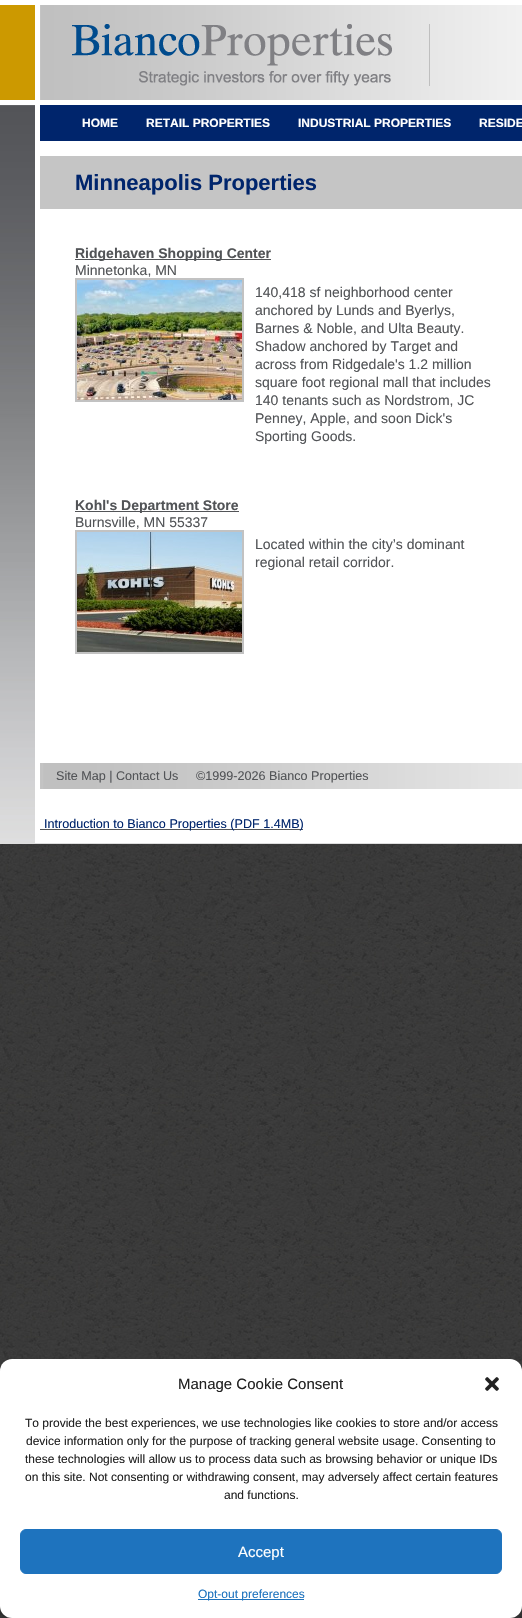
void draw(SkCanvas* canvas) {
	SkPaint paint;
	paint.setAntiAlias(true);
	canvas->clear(0xffffffff);
	canvas->drawImageRect(SkImages::DeferredFromEncodedData(SkData::MakeFromFileName("img1.png")), SkRect::MakeXYWH(0, 844, 522, 774), SkSamplingOptions());
	paint.setColor(0xffcc9900);
	canvas->drawRect(SkRect::MakeXYWH(0, 5, 35, 95), paint);
	canvas->drawImageRect(SkImages::DeferredFromEncodedData(SkData::MakeFromFileName("img2.png")), SkRect::MakeXYWH(40, 5, 482, 95), SkSamplingOptions());
	paint.setColor(0xffbfbfbf);
	canvas->drawRect(SkRect::MakeXYWH(429, 24, 1, 62), paint);
	canvas->drawImageRect(SkImages::DeferredFromEncodedData(SkData::MakeFromFileName("img3.png")), SkRect::MakeXYWH(72, 24, 320, 62), SkSamplingOptions());
	canvas->drawImageRect(SkImages::DeferredFromEncodedData(SkData::MakeFromFileName("img4.png")), SkRect::MakeXYWH(0, 105, 522, 739), SkSamplingOptions());
	paint.setColor(0xffffffff);
	canvas->drawRect(SkRect::MakeXYWH(35, 105, 487, 738), paint);
	paint.setColor(0xff00256c);
	canvas->drawRect(SkRect::MakeXYWH(40, 105, 482, 36), paint);
	SkFont f1(fontMgr->matchFamilyStyle("Liberation Sans", SkFontStyle::Bold()), 12);
	f1.setSubpixel(true);
	paint.setColor(0xffffffff);
	canvas->drawString("HOME", 82, 127, f1, paint);
	canvas->drawString("RETAIL PROPERTIES", 146, 127, f1, paint);
	canvas->drawString("INDUSTRIAL PROPERTIES", 298, 127, f1, paint);
	canvas->drawString("RESIDE", 479, 127, f1, paint);
	paint.setColor(0xffc5c5c5);
	canvas->drawRect(SkRect::MakeXYWH(40, 156, 482, 53), paint);
	SkFont f2(fontMgr->matchFamilyStyle("Liberation Sans", SkFontStyle::Bold()), 22);
	f2.setSubpixel(true);
	paint.setColor(0xff00256c);
	canvas->drawString("Minneapolis Properties", 75, 190, f2, paint);
	paint.setColor(0xff525457);
	canvas->drawRect(SkRect::MakeXYWH(75, 259, 196, 1), paint);
	SkFont f3(fontMgr->matchFamilyStyle("Liberation Sans", SkFontStyle::Bold()), 14);
	f3.setSubpixel(true);
	canvas->drawString("Ridgehaven Shopping Center", 75, 258, f3, paint);
	SkFont f4(fontMgr->matchFamilyStyle("Liberation Sans", SkFontStyle::Normal()), 14);
	f4.setSubpixel(true);
	canvas->drawString("Minnetonka, MN", 75, 275, f4, paint);
	paint.setStroke(true);
	paint.setStrokeWidth(2);
	paint.setColor(0xffc2c2c2);
	canvas->drawRect(SkRect::MakeXYWH(76, 279, 167, 122), paint);
	canvas->drawImageRect(SkImages::DeferredFromEncodedData(SkData::MakeFromFileName("img5.png")), SkRect::MakeXYWH(77, 280, 165, 120), SkSamplingOptions());
	paint.setStroke(false);
	paint.setColor(0xff525457);
	canvas->drawString("140,418 sf neighborhood center", 255, 297, f4, paint);
	canvas->drawString("anchored by Lunds and Byerlys,", 255, 315, f4, paint);
	canvas->drawString("Barnes & Noble, and Ulta Beauty.", 255, 333, f4, paint);
	canvas->drawString("Shadow anchored by Target and", 255, 351, f4, paint);
	canvas->drawString("across from Ridgedale's 1.2 million", 255, 369, f4, paint);
	canvas->drawString("square foot regional mall that includes", 255, 387, f4, paint);
	canvas->drawString("140 tenants such as Nordstrom, JC", 255, 405, f4, paint);
	canvas->drawString("Penney, Apple, and soon Dick's", 255, 423, f4, paint);
	canvas->drawString("Sporting Goods.", 255, 441, f4, paint);
	canvas->drawRect(SkRect::MakeXYWH(75, 511, 164, 1), paint);
	canvas->drawString("Kohl's Department Store", 75, 510, f3, paint);
	canvas->drawString("Burnsville, MN 55337", 75, 527, f4, paint);
	paint.setStroke(true);
	paint.setColor(0xffc2c2c2);
	canvas->drawRect(SkRect::MakeXYWH(76, 531, 167, 122), paint);
	canvas->drawImageRect(SkImages::DeferredFromEncodedData(SkData::MakeFromFileName("img6.png")), SkRect::MakeXYWH(77, 532, 165, 120), SkSamplingOptions());
	paint.setStroke(false);
	paint.setColor(0xff525457);
	canvas->drawString("Located within the city’s dominant", 255, 549, f4, paint);
	canvas->drawString("regional retail corridor.", 255, 567, f4, paint);
	canvas->drawImageRect(SkImages::DeferredFromEncodedData(SkData::MakeFromFileName("img7.png")), SkRect::MakeXYWH(40, 763, 482, 26), SkSamplingOptions());
	SkFont f5(fontMgr->matchFamilyStyle("Liberation Sans", SkFontStyle::Normal()), 12.6);
	f5.setSubpixel(true);
	canvas->drawString("Site Map | Contact Us", 56, 780, f5, paint);
	canvas->drawString("©1999-2026 Bianco Properties", 196, 780, f5, paint);
	canvas->drawRect(SkRect::MakeXYWH(40, 829, 263, 1), paint);
	paint.setColor(0xff00256c);
	canvas->drawString("Introduction to Bianco Properties (PDF 1.4MB)", 44, 828, f5, paint);
	paint.setColor(0x3b000000);
	paint.setMaskFilter(SkMaskFilter::MakeBlur(kNormal_SkBlurStyle, 3));
	canvas->drawRoundRect(SkRect::MakeXYWH(0, 1365, 522, 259), 12, 12, paint);
	paint.setMaskFilter(nullptr);
	paint.setColor(0xffffffff);
	canvas->drawRoundRect(SkRect::MakeXYWH(0, 1359, 522, 259), 12, 12, paint);
	SkFont f6(fontMgr->matchFamilyStyle("Liberation Sans", SkFontStyle::Normal()), 15);
	f6.setSubpixel(true);
	paint.setColor(0xff222222);
	canvas->drawString("Manage Cookie Consent", 178, 1389, f6, paint);
	canvas->drawImageRect(SkImages::DeferredFromEncodedData(SkData::MakeFromFileName("img8.png")), SkRect::MakeXYWH(485, 1377, 14, 14), SkSamplingOptions());
	SkFont f7(fontMgr->matchFamilyStyle("Liberation Sans", SkFontStyle::Normal()), 12);
	f7.setSubpixel(true);
	canvas->drawString("To provide the best experiences, we use technologies like cookies to store and/or access", 25, 1427, f7, paint);
	canvas->drawString("device information only for the purpose of tracking general website usage. Consenting to", 26, 1445, f7, paint);
	canvas->drawString("these technologies will allow us to process data such as browsing behavior or unique IDs", 25, 1463, f7, paint);
	canvas->drawString("on this site. Not consenting or withdrawing consent, may adversely affect certain features", 25, 1481, f7, paint);
	canvas->drawString("and functions.", 224, 1499, f7, paint);
	paint.setColor(0xff1e73be);
	canvas->drawRoundRect(SkRect::MakeXYWH(20.5, 1529.5, 481, 44), 5.5, 5.5, paint);
	paint.setStroke(true);
	paint.setStrokeWidth(1);
	canvas->drawRoundRect(SkRect::MakeXYWH(20.5, 1529.5, 481, 44), 5.5, 5.5, paint);
	paint.setStroke(false);
	paint.setColor(0xffffffff);
	canvas->drawString("Accept", 238, 1557, f6, paint);
	paint.setColor(0xff1e73be);
	canvas->drawRect(SkRect::MakeXYWH(198, 1599, 106, 1), paint);
	canvas->drawString("Opt-out preferences", 198, 1598, f7, paint);
}
